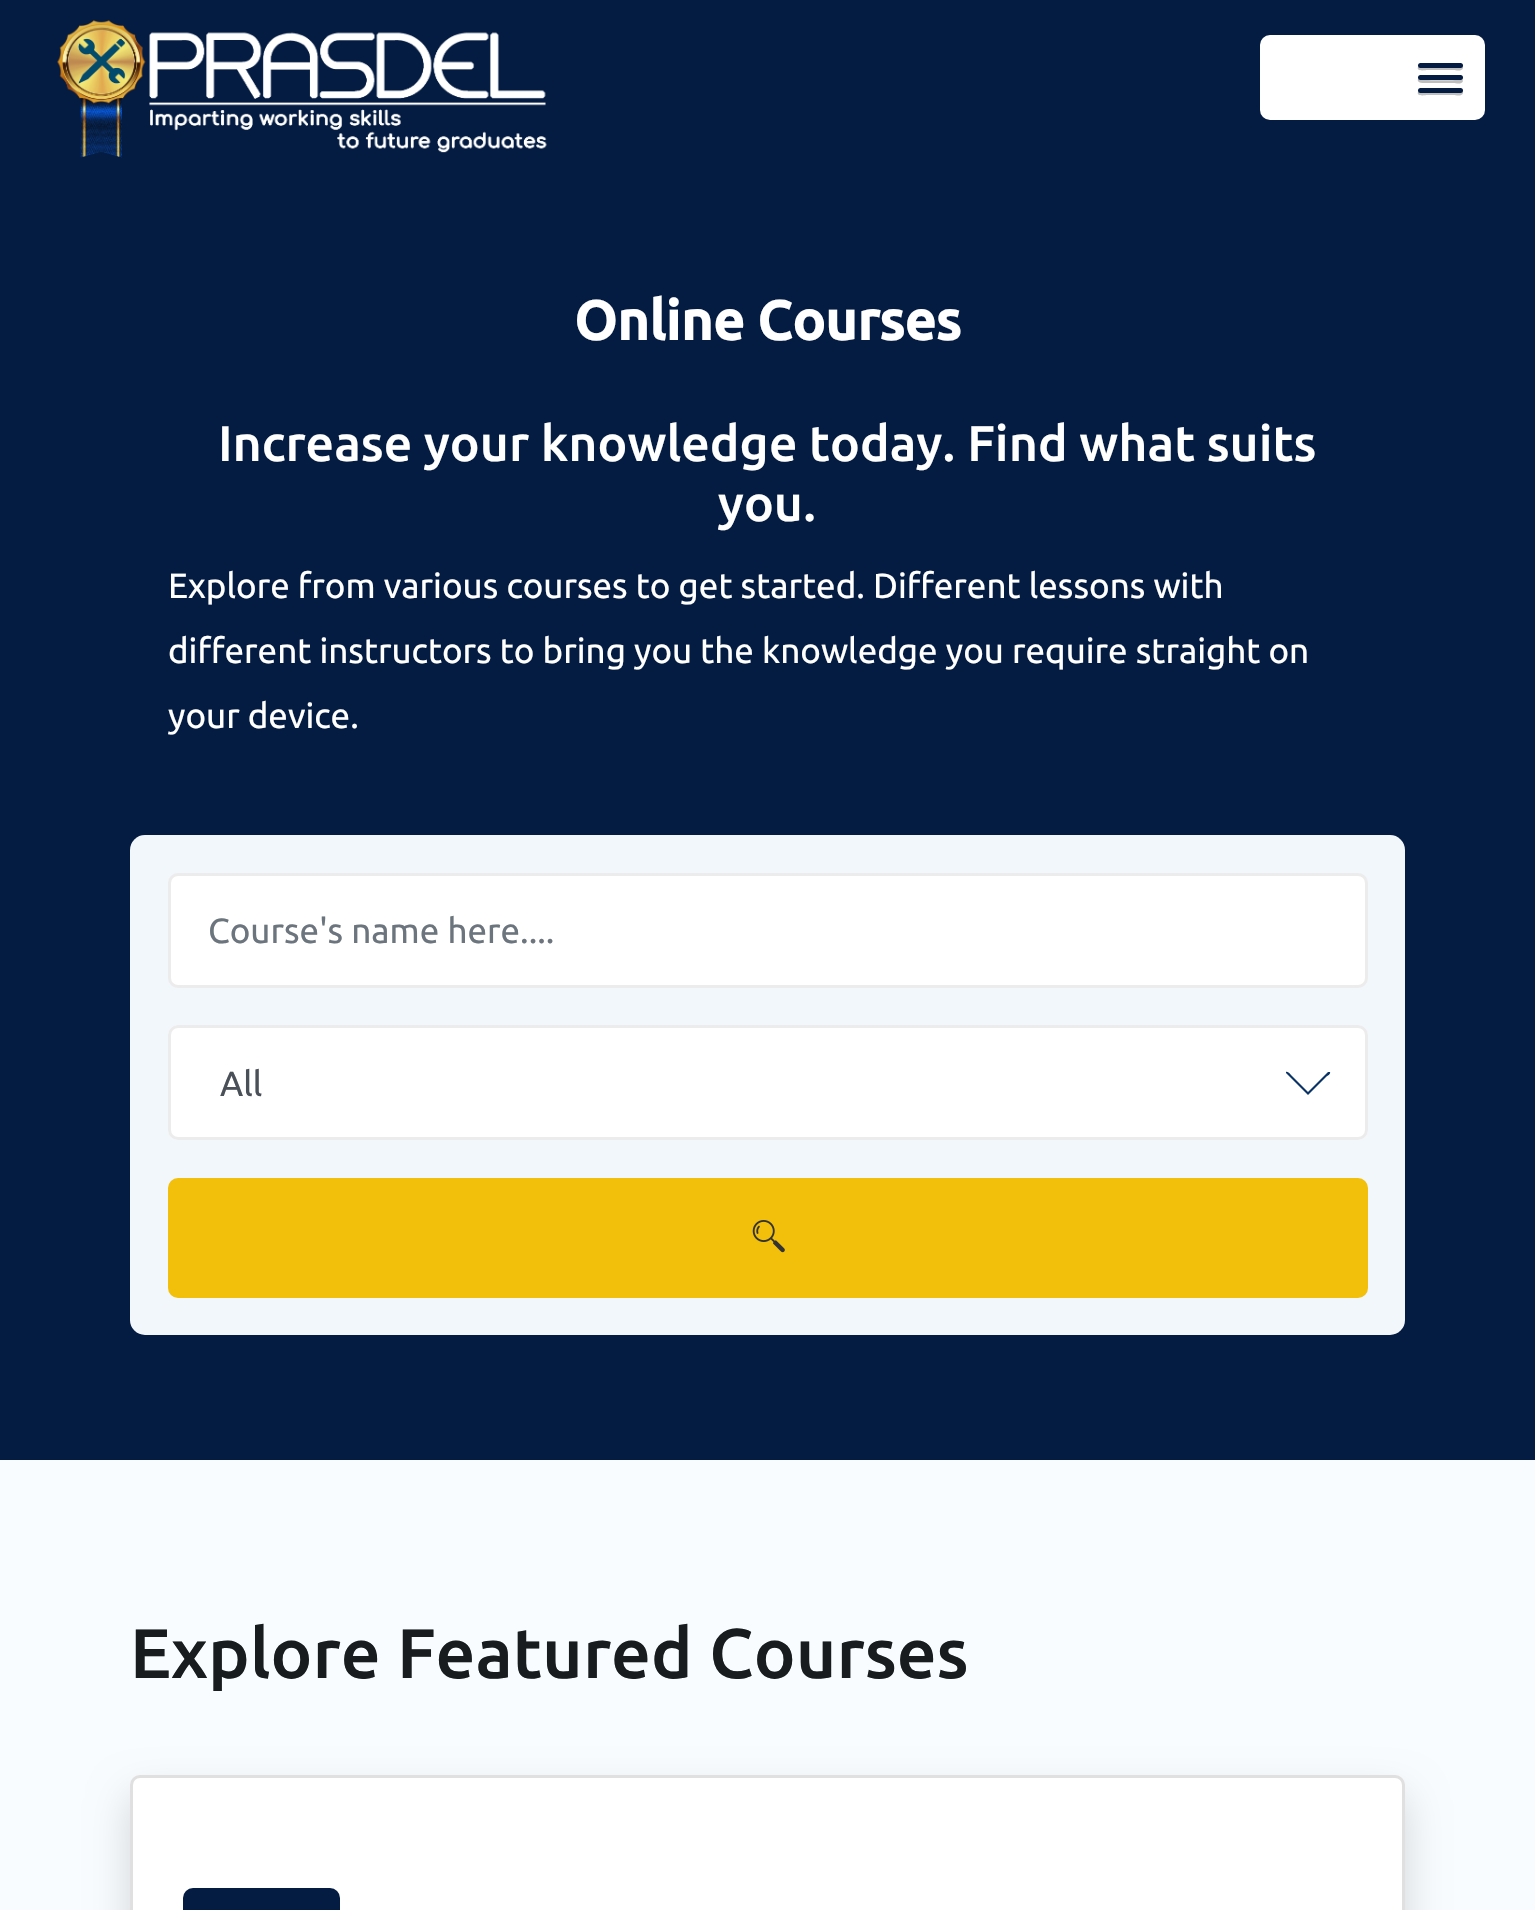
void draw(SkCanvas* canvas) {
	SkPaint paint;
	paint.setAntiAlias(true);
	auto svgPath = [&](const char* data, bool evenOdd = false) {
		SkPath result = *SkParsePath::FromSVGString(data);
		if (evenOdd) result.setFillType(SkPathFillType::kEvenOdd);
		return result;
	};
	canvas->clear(0xfff9fcff);
	paint.setColor(0xff041c42);
	canvas->drawRect(SkRect::MakeXYWH(0, 0, 1535, 1460), paint);
	canvas->drawImageRect(SkImages::DeferredFromEncodedData(SkData::MakeFromFileName("img1.png")), SkRect::MakeXYWH(57, 20, 490, 138), SkSamplingOptions());
	paint.setColor(0xffffffff);
	canvas->drawRoundRect(SkRect::MakeXYWH(1260, 35, 225, 85), 10, 10, paint);
	paint.setColor(0xffbfbfbf);
	canvas->drawPath(svgPath("M1418 67C1416 72 1426 70 1427 70H1454C1455 70 1462 72 1463 68L1462 66L1460 67H1420Z"), paint);
	paint.setColor(0xff041c42);
	canvas->drawRoundRect(SkRect::MakeXYWH(1418, 63, 45, 5), 2.5, 2.5, paint);
	paint.setColor(0xffbfbfbf);
	canvas->drawPath(svgPath("M1418 79C1416 84 1427 83 1427 83H1454C1455 83 1462 85 1463 81L1462 79L1460 80C1457 80 1420 81 1418 79Z"), paint);
	paint.setColor(0xff041c42);
	canvas->drawRoundRect(SkRect::MakeXYWH(1418, 75, 45, 5), 2.5, 2.5, paint);
	paint.setColor(0xffbfbfbf);
	canvas->drawPath(svgPath("M1418 92C1416 97 1426 95 1427 95H1454C1455 95 1462 97 1463 93L1462 91L1460 92H1420Z"), paint);
	paint.setColor(0xff041c42);
	canvas->drawRoundRect(SkRect::MakeXYWH(1418, 88, 45, 5), 2.5, 2.5, paint);
	SkFont f1(fontMgr->matchFamilyStyle("Ubuntu", SkFontStyle::Bold()), 55);
	f1.setSubpixel(true);
	paint.setColor(0xffffffff);
	canvas->drawString("Online Courses", 574, 340, f1, paint);
	SkFont f2(fontMgr->matchFamilyStyle("Ubuntu", SkFontStyle(500, SkFontStyle::kNormal_Width, SkFontStyle::kUpright_Slant)), 50);
	f2.setSubpixel(true);
	canvas->drawString("Increase your knowledge today. Find what suits", 218, 461, f2, paint);
	canvas->drawString("you.", 718, 521, f2, paint);
	SkFont f3(fontMgr->matchFamilyStyle("Ubuntu", SkFontStyle::Normal()), 35);
	f3.setSubpixel(true);
	canvas->drawString("Explore from various courses to get started. Different lessons with", 168, 598, f3, paint);
	canvas->drawString("different instructors to bring you the knowledge you require straight on", 168, 663, f3, paint);
	canvas->drawString("your device.", 168, 728, f3, paint);
	paint.setColor(0xfff2f7fb);
	canvas->drawRoundRect(SkRect::MakeXYWH(130, 835, 1275, 500), 15, 15, paint);
	paint.setColor(0xffffffff);
	canvas->drawRoundRect(SkRect::MakeXYWH(169.5, 874.5, 1197, 112), 8.5, 8.5, paint);
	paint.setStroke(true);
	paint.setStrokeWidth(3);
	paint.setColor(0xffececec);
	canvas->drawRoundRect(SkRect::MakeXYWH(169.5, 874.5, 1197, 112), 8.5, 8.5, paint);
	paint.setStroke(false);
	paint.setColor(0xff6c757d);
	canvas->drawString("Course's name here....", 208, 943, f3, paint);
	paint.setColor(0xffffffff);
	canvas->drawRoundRect(SkRect::MakeXYWH(168, 1025, 1200, 115), 10, 10, paint);
	paint.setColor(0xff093266);
	canvas->drawPath(svgPath("M1286 1072C1288 1071 1290 1074 1291 1075L1308 1092L1328 1072C1328 1072 1329 1072 1330 1072C1331 1074 1327 1076 1326 1077L1308 1095L1304 1091L1286 1073Z"), paint);
	paint.setStroke(true);
	paint.setColor(0xffececec);
	canvas->drawRoundRect(SkRect::MakeXYWH(169.5, 1026.5, 1197, 112), 8.5, 8.5, paint);
	paint.setStroke(false);
	paint.setColor(0xff495057);
	canvas->drawString("All", 220, 1096, f3, paint);
	paint.setColor(0xfff2c00b);
	canvas->drawRoundRect(SkRect::MakeXYWH(168, 1178, 1200, 120), 10, 10, paint);
	canvas->drawImageRect(SkImages::DeferredFromEncodedData(SkData::MakeFromFileName("img2.png")), SkRect::MakeXYWH(752, 1220, 33, 33), SkSamplingOptions());
	SkFont f4(fontMgr->matchFamilyStyle("Ubuntu", SkFontStyle(500, SkFontStyle::kNormal_Width, SkFontStyle::kUpright_Slant)), 70);
	f4.setSubpixel(true);
	paint.setColor(0xff191c1e);
	canvas->drawString("Explore Featured Courses", 130, 1678, f4, paint);
	paint.setColor(0x26000000);
	paint.setMaskFilter(SkMaskFilter::MakeBlur(kNormal_SkBlurStyle, 20));
	canvas->drawRoundRect(SkRect::MakeXYWH(130, 1795, 1275, 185), 10, 10, paint);
	paint.setMaskFilter(nullptr);
	paint.setColor(0xffffffff);
	canvas->drawRoundRect(SkRect::MakeXYWH(130, 1775, 1275, 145), 10, 10, paint);
	paint.setStroke(true);
	paint.setColor(0x1f000000);
	canvas->drawRoundRect(SkRect::MakeXYWH(131.5, 1776.5, 1272, 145), 8.5, 8.5, paint);
	paint.setStroke(false);
	paint.setColor(0xff041c42);
	canvas->drawRoundRect(SkRect::MakeXYWH(183, 1888, 157, 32), 10, 10, paint);
}
